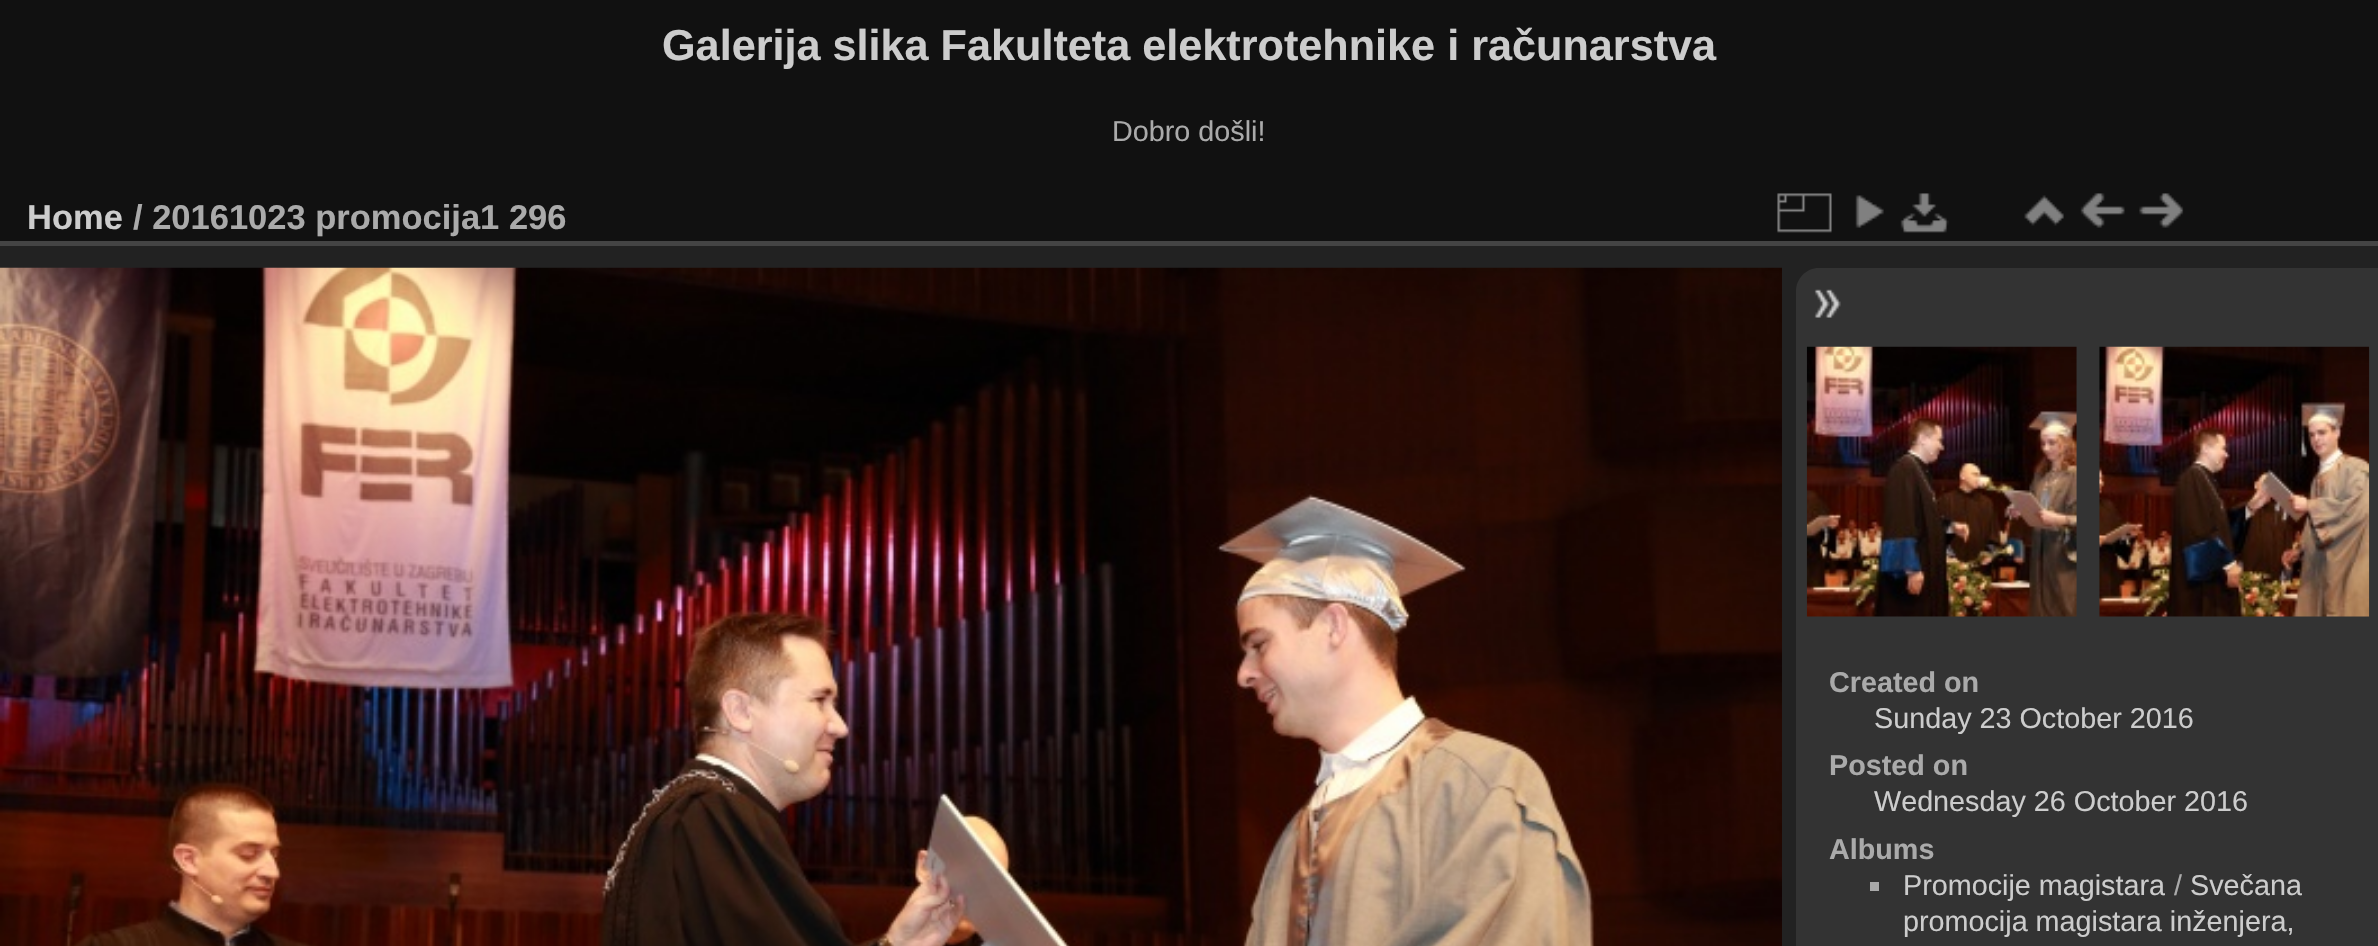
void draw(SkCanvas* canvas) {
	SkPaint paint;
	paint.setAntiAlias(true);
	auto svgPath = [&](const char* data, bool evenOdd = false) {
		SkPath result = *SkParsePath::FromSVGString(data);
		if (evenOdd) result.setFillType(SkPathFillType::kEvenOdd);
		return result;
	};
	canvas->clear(0xff111111);
	SkFont f1(fontMgr->matchFamilyStyle("Liberation Sans", SkFontStyle::Bold()), 43.2);
	f1.setSubpixel(true);
	paint.setColor(0xffcccccc);
	canvas->drawString("Galerija slika Fakulteta elektrotehnike i računarstva", 662, 60, f1, paint);
	SkFont f2(fontMgr->matchFamilyStyle("Liberation Sans", SkFontStyle::Normal()), 28.75);
	f2.setSubpixel(true);
	paint.setColor(0xffaaaaaa);
	canvas->drawString("Dobro došli!", 1112, 141, f2, paint);
	paint.setColor(0xff222222);
	canvas->drawRect(SkRect::MakeXYWH(0, 246, 2378, 700), paint);
	paint.setColor(0xff444444);
	canvas->drawRect(SkRect::MakeXYWH(0, 241, 2378, 5), paint);
	SkFont f3(fontMgr->matchFamilyStyle("Liberation Sans", SkFontStyle::Bold()), 34.5);
	f3.setSubpixel(true);
	paint.setColor(0xffcccccc);
	canvas->drawString("Home", 27, 229, f3, paint);
	paint.setColor(0xffaaaaaa);
	canvas->drawString("/ 20161023 promocija1 296", 133, 229, f3, paint);
	canvas->drawImageRect(SkImages::DeferredFromEncodedData(SkData::MakeFromFileName("img1.png")), SkRect::MakeXYWH(1777, 193, 55, 40), SkSamplingOptions());
	canvas->drawImageRect(SkImages::DeferredFromEncodedData(SkData::MakeFromFileName("img2.png")), SkRect::MakeXYWH(1855, 195, 29, 33), SkSamplingOptions());
	canvas->drawImageRect(SkImages::DeferredFromEncodedData(SkData::MakeFromFileName("img3.png")), SkRect::MakeXYWH(1900, 193, 49, 40), SkSamplingOptions());
	canvas->drawImageRect(SkImages::DeferredFromEncodedData(SkData::MakeFromFileName("img4.png")), SkRect::MakeXYWH(2024, 195, 40, 31), SkSamplingOptions());
	canvas->drawImageRect(SkImages::DeferredFromEncodedData(SkData::MakeFromFileName("img5.png")), SkRect::MakeXYWH(2080, 193, 45, 35), SkSamplingOptions());
	canvas->drawImageRect(SkImages::DeferredFromEncodedData(SkData::MakeFromFileName("img6.png")), SkRect::MakeXYWH(2139, 193, 45, 35), SkSamplingOptions());
	canvas->drawImageRect(SkImages::DeferredFromEncodedData(SkData::MakeFromFileName("img7.png")), SkRect::MakeXYWH(0, 267, 1782, 679), SkSamplingOptions());
	paint.setColor(0xff333333);
	canvas->drawPath(svgPath("M1819 268H2378V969H1819C1806.5 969 1796 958.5 1796 946V291C1796 278.5 1806.5 268 1819 268Z"), paint);
	canvas->drawImageRect(SkImages::DeferredFromEncodedData(SkData::MakeFromFileName("img8.png")), SkRect::MakeXYWH(1814, 289, 27, 29), SkSamplingOptions());
	canvas->drawImageRect(SkImages::DeferredFromEncodedData(SkData::MakeFromFileName("img9.png")), SkRect::MakeXYWH(1806, 346, 271, 271), SkSamplingOptions());
	canvas->drawImageRect(SkImages::DeferredFromEncodedData(SkData::MakeFromFileName("img10.png")), SkRect::MakeXYWH(2099, 346, 271, 271), SkSamplingOptions());
	SkFont f4(fontMgr->matchFamilyStyle("Liberation Sans", SkFontStyle::Bold()), 28.75);
	f4.setSubpixel(true);
	paint.setColor(0xffaaaaaa);
	canvas->drawString("Created on", 1829, 692, f4, paint);
	paint.setColor(0xffcccccc);
	canvas->drawString("Sunday 23 October 2016", 1874, 728, f2, paint);
	paint.setColor(0xffaaaaaa);
	canvas->drawString("Posted on", 1829, 775, f4, paint);
	paint.setColor(0xffcccccc);
	canvas->drawString("Wednesday 26 October 2016", 1874, 811, f2, paint);
	paint.setColor(0xffaaaaaa);
	canvas->drawString("Albums", 1829, 859, f4, paint);
	canvas->drawRect(SkRect::MakeXYWH(1870, 882, 9, 9), paint);
	paint.setColor(0xffcccccc);
	canvas->drawString("Promocije magistara", 1903, 895, f2, paint);
	paint.setColor(0xffaaaaaa);
	canvas->drawString("/", 2174, 895, f2, paint);
	paint.setColor(0xffcccccc);
	canvas->drawString("Svečana", 2190, 895, f2, paint);
	canvas->drawString("promocija magistara inženjera,", 1903, 931, f2, paint);
}
